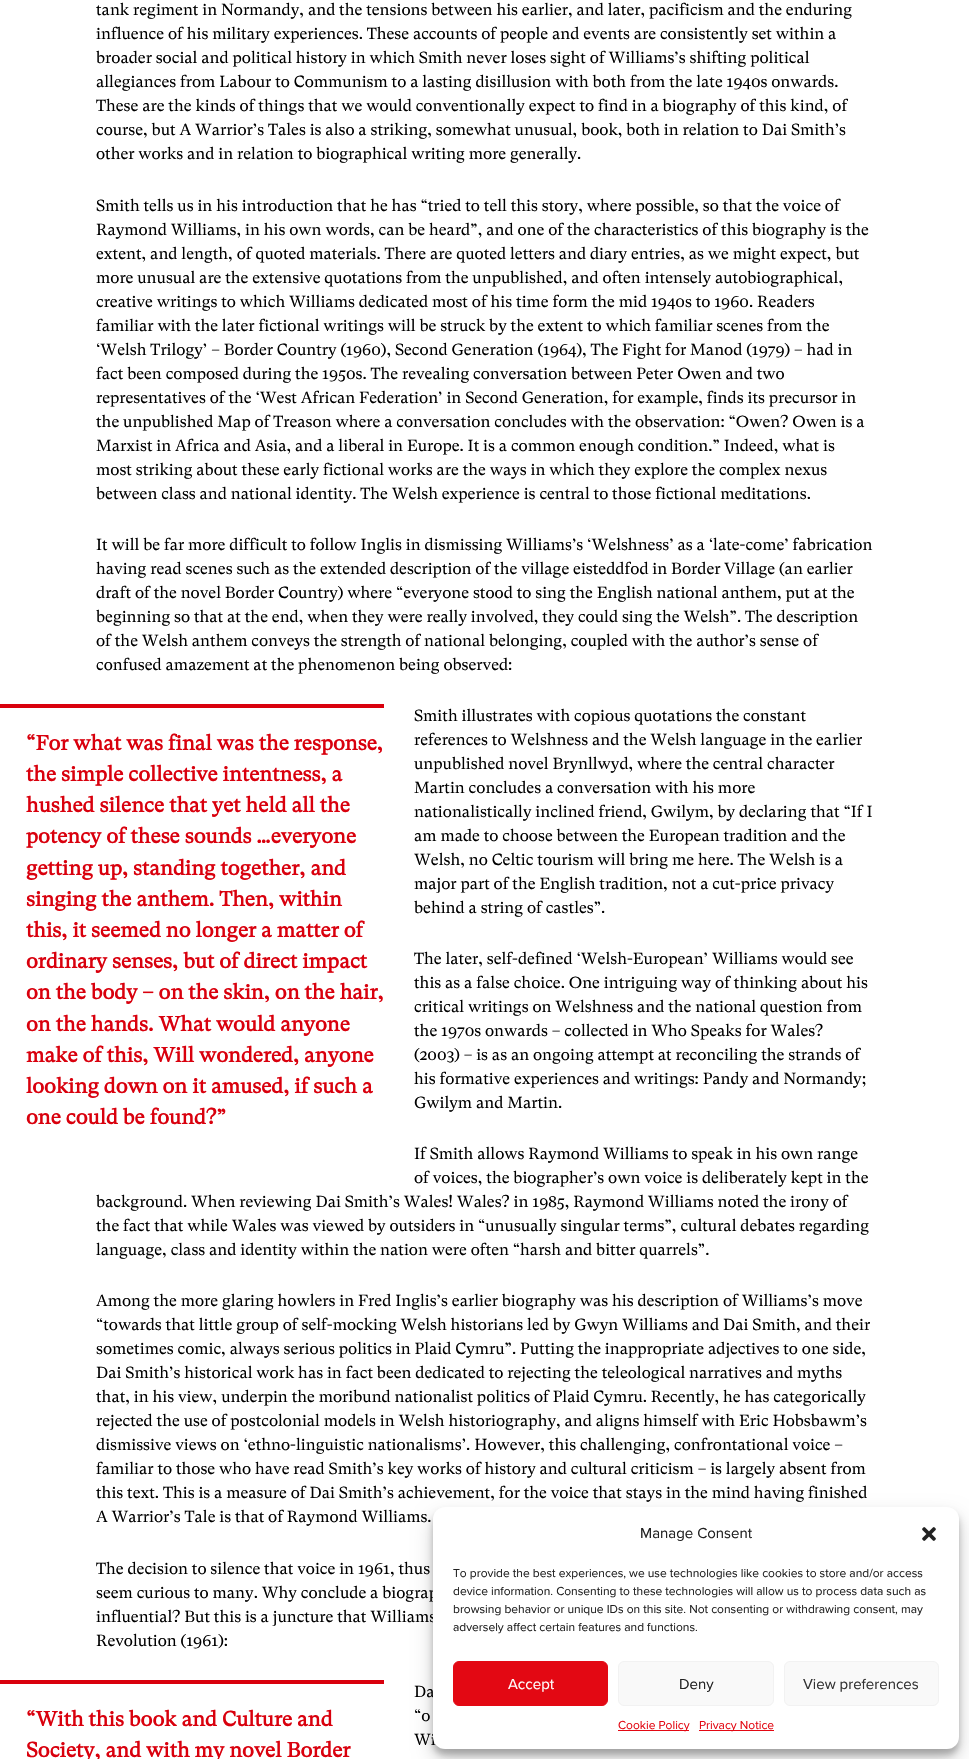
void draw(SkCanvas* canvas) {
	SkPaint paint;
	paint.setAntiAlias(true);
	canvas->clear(0xffffffff);
	SkFont f1(fontMgr->matchFamilyStyle("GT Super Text", SkFontStyle::Normal()), 16);
	f1.setSubpixel(true);
	paint.setColor(0xff000000);
	canvas->drawString("tank regiment in Normandy, and the tensions between his earlier, and later, pacificism and the enduring", 96, 15, f1, paint);
	canvas->drawString("influence of his military experiences. These accounts of people and events are consistently set within a", 96, 39, f1, paint);
	canvas->drawString("broader social and political history in which Smith never loses sight of Williams’s shifting political", 96, 63, f1, paint);
	canvas->drawString("allegiances from Labour to Communism to a lasting disillusion with both from the late 1940s onwards.", 96, 87, f1, paint);
	canvas->drawString("These are the kinds of things that we would conventionally expect to find in a biography of this kind, of", 96, 111, f1, paint);
	canvas->drawString("course, but A Warrior’s Tales is also a striking, somewhat unusual, book, both in relation to Dai Smith’s", 96, 135, f1, paint);
	canvas->drawString("other works and in relation to biographical writing more generally.", 96, 159, f1, paint);
	canvas->drawString("Smith tells us in his introduction that he has “tried to tell this story, where possible, so that the voice of", 96, 211, f1, paint);
	canvas->drawString("Raymond Williams, in his own words, can be heard”, and one of the characteristics of this biography is the", 96, 235, f1, paint);
	canvas->drawString("extent, and length, of quoted materials. There are quoted letters and diary entries, as we might expect, but", 96, 259, f1, paint);
	canvas->drawString("more unusual are the extensive quotations from the unpublished, and often intensely autobiographical,", 96, 283, f1, paint);
	canvas->drawString("creative writings to which Williams dedicated most of his time form the mid 1940s to 1960. Readers", 96, 307, f1, paint);
	canvas->drawString("familiar with the later fictional writings will be struck by the extent to which familiar scenes from the", 96, 331, f1, paint);
	canvas->drawString("‘Welsh Trilogy’ – Border Country (1960), Second Generation (1964), The Fight for Manod (1979) – had in", 96, 355, f1, paint);
	canvas->drawString("fact been composed during the 1950s. The revealing conversation between Peter Owen and two", 96, 379, f1, paint);
	canvas->drawString("representatives of the ‘West African Federation’ in Second Generation, for example, finds its precursor in", 96, 403, f1, paint);
	canvas->drawString("the unpublished Map of Treason where a conversation concludes with the observation: “Owen? Owen is a", 96, 427, f1, paint);
	canvas->drawString("Marxist in Africa and Asia, and a liberal in Europe. It is a common enough condition.” Indeed, what is", 96, 451, f1, paint);
	canvas->drawString("most striking about these early fictional works are the ways in which they explore the complex nexus", 96, 475, f1, paint);
	canvas->drawString("between class and national identity. The Welsh experience is central to those fictional meditations.", 96, 499, f1, paint);
	canvas->drawString("It will be far more difficult to follow Inglis in dismissing Williams’s ‘Welshness’ as a ‘late-come’ fabrication", 96, 550, f1, paint);
	canvas->drawString("having read scenes such as the extended description of the village eisteddfod in Border Village (an earlier", 96, 574, f1, paint);
	canvas->drawString("draft of the novel Border Country) where “everyone stood to sing the English national anthem, put at the", 96, 598, f1, paint);
	canvas->drawString("beginning so that at the end, when they were really involved, they could sing the Welsh”. The description", 96, 622, f1, paint);
	canvas->drawString("of the Welsh anthem conveys the strength of national belonging, coupled with the author’s sense of", 96, 646, f1, paint);
	canvas->drawString("confused amazement at the phenomenon being observed:", 96, 670, f1, paint);
	paint.setColor(0xffd9000d);
	canvas->drawRect(SkRect::MakeXYWH(0, 704, 384, 4), paint);
	SkFont f2(fontMgr->matchFamilyStyle("GT Super Text", SkFontStyle::Bold()), 20.75);
	f2.setSubpixel(true);
	canvas->drawString("“For what was final was the response,", 26, 750, f2, paint);
	canvas->drawString("the simple collective intentness, a", 26, 781, f2, paint);
	canvas->drawString("hushed silence that yet held all the", 26, 812, f2, paint);
	canvas->drawString("potency of these sounds …everyone", 26, 843, f2, paint);
	canvas->drawString("getting up, standing together, and", 26, 875, f2, paint);
	canvas->drawString("singing the anthem. Then, within", 26, 906, f2, paint);
	canvas->drawString("this, it seemed no longer a matter of", 26, 937, f2, paint);
	canvas->drawString("ordinary senses, but of direct impact", 26, 968, f2, paint);
	canvas->drawString("on the body – on the skin, on the hair,", 26, 999, f2, paint);
	canvas->drawString("on the hands. What would anyone", 26, 1031, f2, paint);
	canvas->drawString("make of this, Will wondered, anyone", 26, 1062, f2, paint);
	canvas->drawString("looking down on it amused, if such a", 26, 1093, f2, paint);
	canvas->drawString("one could be found?”", 26, 1124, f2, paint);
	paint.setColor(0xff000000);
	canvas->drawString("Smith illustrates with copious quotations the constant", 414, 721, f1, paint);
	canvas->drawString("references to Welshness and the Welsh language in the earlier", 414, 745, f1, paint);
	canvas->drawString("unpublished novel Brynllwyd, where the central character", 414, 769, f1, paint);
	canvas->drawString("Martin concludes a conversation with his more", 414, 793, f1, paint);
	canvas->drawString("nationalistically inclined friend, Gwilym, by declaring that “If I", 414, 817, f1, paint);
	canvas->drawString("am made to choose between the European tradition and the", 414, 841, f1, paint);
	canvas->drawString("Welsh, no Celtic tourism will bring me here. The Welsh is a", 414, 865, f1, paint);
	canvas->drawString("major part of the English tradition, not a cut-price privacy", 414, 889, f1, paint);
	canvas->drawString("behind a string of castles”.", 414, 913, f1, paint);
	canvas->drawString("The later, self-defined ‘Welsh-European’ Williams would see", 414, 964, f1, paint);
	canvas->drawString("this as a false choice. One intriguing way of thinking about his", 414, 988, f1, paint);
	canvas->drawString("critical writings on Welshness and the national question from", 414, 1012, f1, paint);
	canvas->drawString("the 1970s onwards – collected in Who Speaks for Wales?", 414, 1036, f1, paint);
	canvas->drawString("(2003) – is as an ongoing attempt at reconciling the strands of", 414, 1060, f1, paint);
	canvas->drawString("his formative experiences and writings: Pandy and Normandy;", 414, 1084, f1, paint);
	canvas->drawString("Gwilym and Martin.", 414, 1108, f1, paint);
	canvas->drawString("If Smith allows Raymond Williams to speak in his own range", 414, 1159, f1, paint);
	canvas->drawString("of voices, the biographer’s own voice is deliberately kept in the", 414, 1183, f1, paint);
	canvas->drawString("background. When reviewing Dai Smith’s Wales! Wales? in 1985, Raymond Williams noted the irony of", 96, 1207, f1, paint);
	canvas->drawString("the fact that while Wales was viewed by outsiders in “unusually singular terms”, cultural debates regarding", 96, 1231, f1, paint);
	canvas->drawString("language, class and identity within the nation were often “harsh and bitter quarrels”.", 96, 1255, f1, paint);
	canvas->drawString("Among the more glaring howlers in Fred Inglis’s earlier biography was his description of Williams’s move", 96, 1306, f1, paint);
	canvas->drawString("“towards that little group of self-mocking Welsh historians led by Gwyn Williams and Dai Smith, and their", 96, 1330, f1, paint);
	canvas->drawString("sometimes comic, always serious politics in Plaid Cymru”. Putting the inappropriate adjectives to one side,", 96, 1354, f1, paint);
	canvas->drawString("Dai Smith’s historical work has in fact been dedicated to rejecting the teleological narratives and myths", 96, 1378, f1, paint);
	canvas->drawString("that, in his view, underpin the moribund nationalist politics of Plaid Cymru. Recently, he has categorically", 96, 1402, f1, paint);
	canvas->drawString("rejected the use of postcolonial models in Welsh historiography, and aligns himself with Eric Hobsbawm’s", 96, 1426, f1, paint);
	canvas->drawString("dismissive views on ‘ethno-linguistic nationalisms’. However, this challenging, confrontational voice –", 96, 1450, f1, paint);
	canvas->drawString("familiar to those who have read Smith’s key works of history and cultural criticism – is largely absent from", 96, 1474, f1, paint);
	canvas->drawString("this text. This is a measure of Dai Smith’s achievement, for the voice that stays in the mind having finished", 96, 1498, f1, paint);
	canvas->drawString("A Warrior’s Tale is that of Raymond Williams.", 96, 1522, f1, paint);
	canvas->drawString("The decision to silence that voice in 1961, thus", 96, 1574, f1, paint);
	canvas->drawString("seem curious to many. Why conclude a biograp", 96, 1598, f1, paint);
	canvas->drawString("influential? But this is a juncture that Williams", 96, 1622, f1, paint);
	canvas->drawString("Revolution (1961):", 96, 1646, f1, paint);
	paint.setColor(0xffd9000d);
	canvas->drawRect(SkRect::MakeXYWH(0, 1680, 384, 4), paint);
	canvas->drawString("“With this book and Culture and", 26, 1726, f2, paint);
	canvas->drawString("Society, and with my novel Border", 26, 1757, f2, paint);
	paint.setColor(0xff000000);
	canvas->drawString("Da", 414, 1697, f1, paint);
	canvas->drawString("“o", 414, 1721, f1, paint);
	canvas->drawString("Wi", 414, 1745, f1, paint);
	paint.setColor(0x3b000000);
	paint.setMaskFilter(SkMaskFilter::MakeBlur(kNormal_SkBlurStyle, 3));
	canvas->drawRoundRect(SkRect::MakeXYWH(433, 1513, 526, 242), 12, 12, paint);
	paint.setMaskFilter(nullptr);
	paint.setColor(0x30000000);
	paint.setMaskFilter(SkMaskFilter::MakeBlur(kNormal_SkBlurStyle, 10));
	canvas->drawRoundRect(SkRect::MakeXYWH(433, 1517, 526, 242), 12, 12, paint);
	paint.setMaskFilter(nullptr);
	paint.setColor(0xffffffff);
	canvas->drawRoundRect(SkRect::MakeXYWH(433, 1507, 526, 242), 12, 12, paint);
	SkFont f3(fontMgr->matchFamilyStyle("Proxima Nova", SkFontStyle::Normal()), 15);
	f3.setSubpixel(true);
	paint.setColor(0xff222222);
	canvas->drawString("Manage Consent", 640, 1538, f3, paint);
	canvas->drawImageRect(SkImages::DeferredFromEncodedData(SkData::MakeFromFileName("img1.png")), SkRect::MakeXYWH(922, 1527, 14, 14), SkSamplingOptions());
	SkFont f4(fontMgr->matchFamilyStyle("Proxima Nova", SkFontStyle::Normal()), 12);
	f4.setSubpixel(true);
	canvas->drawString("To provide the best experiences, we use technologies like cookies to store and/or access", 453, 1577, f4, paint);
	canvas->drawString("device information. Consenting to these technologies will allow us to process data such as", 453, 1595, f4, paint);
	canvas->drawString("browsing behavior or unique IDs on this site. Not consenting or withdrawing consent, may", 453, 1613, f4, paint);
	canvas->drawString("adversely affect certain features and functions.", 453, 1631, f4, paint);
	paint.setColor(0xffe30813);
	canvas->drawRoundRect(SkRect::MakeXYWH(453.5, 1661.5, 154, 44), 5.5, 5.5, paint);
	paint.setStroke(true);
	paint.setStrokeWidth(1);
	canvas->drawRoundRect(SkRect::MakeXYWH(453.5, 1661.5, 154, 44), 5.5, 5.5, paint);
	paint.setStroke(false);
	paint.setColor(0xffffffff);
	canvas->drawString("Accept", 508, 1689, f3, paint);
	paint.setColor(0xfff9f9f9);
	canvas->drawRoundRect(SkRect::MakeXYWH(618.5, 1661.5, 155, 44), 5.5, 5.5, paint);
	paint.setStroke(true);
	paint.setColor(0xfff2f2f2);
	canvas->drawRoundRect(SkRect::MakeXYWH(618.5, 1661.5, 155, 44), 5.5, 5.5, paint);
	paint.setStroke(false);
	paint.setColor(0xff222222);
	canvas->drawString("Deny", 679, 1689, f3, paint);
	paint.setColor(0xfff9f9f9);
	canvas->drawRoundRect(SkRect::MakeXYWH(784.5, 1661.5, 154, 44), 5.5, 5.5, paint);
	paint.setStroke(true);
	paint.setColor(0xfff2f2f2);
	canvas->drawRoundRect(SkRect::MakeXYWH(784.5, 1661.5, 154, 44), 5.5, 5.5, paint);
	paint.setStroke(false);
	paint.setColor(0xff333333);
	canvas->drawString("View preferences", 803, 1689, f3, paint);
	paint.setColor(0xffe30813);
	canvas->drawRect(SkRect::MakeXYWH(618, 1730, 71, 1), paint);
	canvas->drawString("Cookie Policy", 618, 1729, f4, paint);
	canvas->drawRect(SkRect::MakeXYWH(699, 1730, 75, 1), paint);
	canvas->drawString("Privacy Notice", 699, 1729, f4, paint);
}
